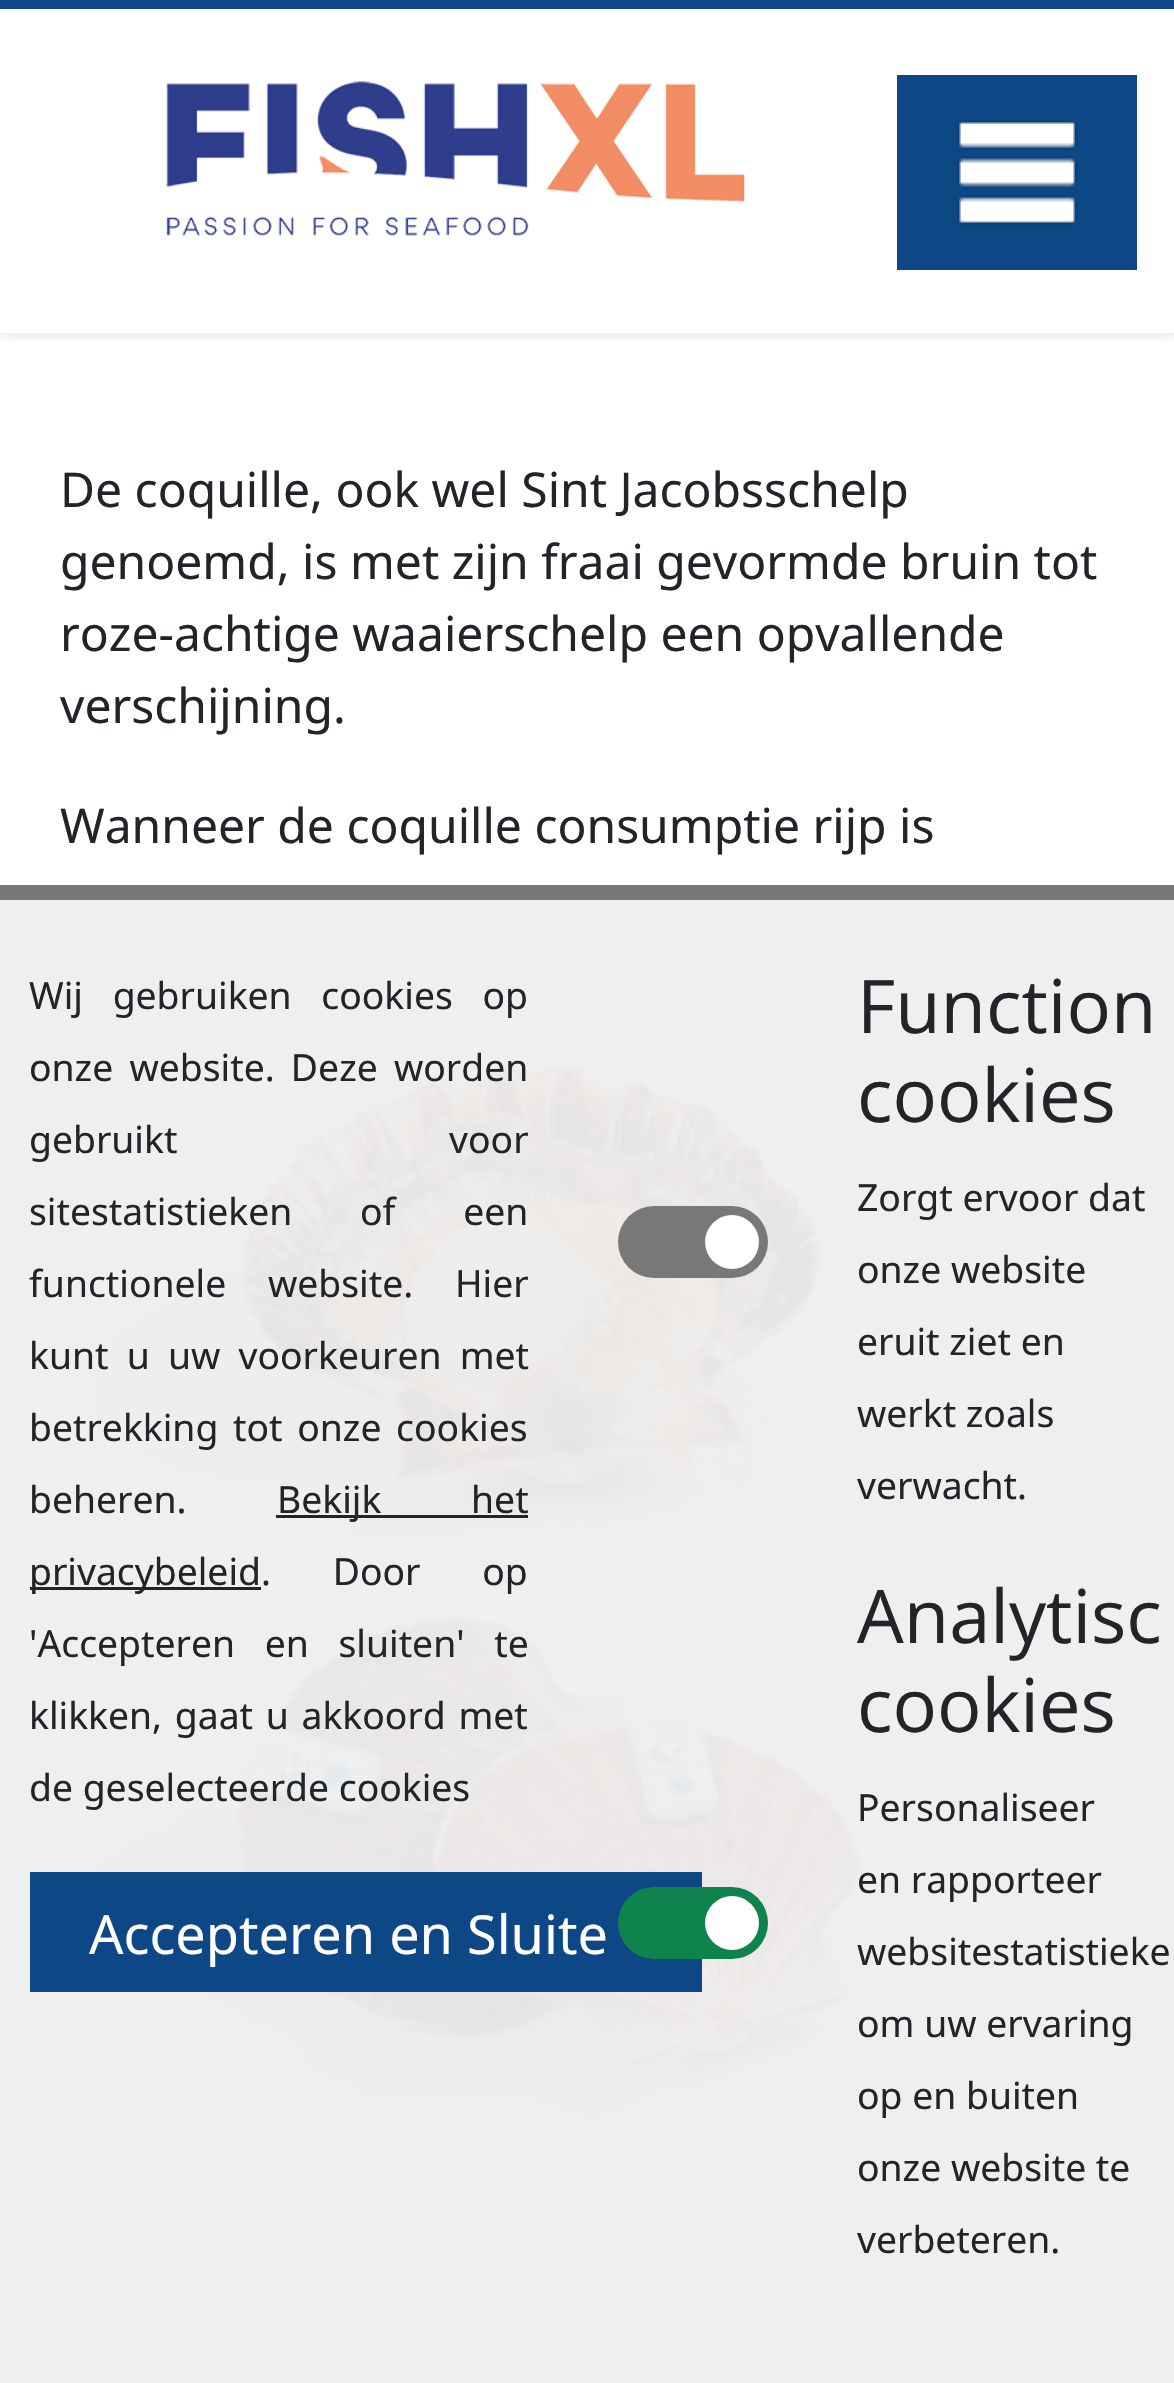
void draw(SkCanvas* canvas) {
	SkPaint paint;
	paint.setAntiAlias(true);
	auto spacedText = [&](const char* s, float x, float y, const SkFont& font, const SkPaint& ink, float letter, float word) {
		std::vector<SkGlyphID> glyphs(font.countText(s, strlen(s), SkTextEncoding::kUTF8));
		std::vector<float> xs(glyphs.size());
		font.textToGlyphs(s, strlen(s), SkTextEncoding::kUTF8, glyphs);
		font.getXPos(glyphs, xs, x);
		float extra = 0;
		for (size_t i = 0; i < glyphs.size(); i++) {
			xs[i] += extra;
			extra += letter + word * (glyphs[i] == font.unicharToGlyph(' '));
		}
		canvas->drawTextBlob(SkTextBlob::MakeFromPosHGlyphs(glyphs, xs, y, font), 0, 0, ink);
	};
	canvas->clear(0xffffffff);
	canvas->save();
	canvas->clipRect(SkRect::MakeXYWH(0, 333, 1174, 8));
	paint.setColor(0x26000000);
	paint.setMaskFilter(SkMaskFilter::MakeBlur(kNormal_SkBlurStyle, 7.5));
	canvas->drawRect(SkRect::MakeXYWH(0, 0, 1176, 333), paint);
	paint.setMaskFilter(nullptr);
	canvas->restore();
	paint.setColor(0xff0d4786);
	canvas->drawRect(SkRect::MakeXYWH(0, 0, 1174, 9), paint);
	canvas->drawImageRect(SkImages::DeferredFromEncodedData(SkData::MakeFromFileName("img1.png")), SkRect::MakeXYWH(166, 80, 580, 156), SkSamplingOptions());
	canvas->drawRect(SkRect::MakeXYWH(897, 75, 240, 195), paint);
	canvas->drawImageRect(SkImages::DeferredFromEncodedData(SkData::MakeFromFileName("img2.png")), SkRect::MakeXYWH(956, 119, 122, 107), SkSamplingOptions());
	SkFont f1(fontMgr->matchFamilyStyle("Noto Sans", SkFontStyle::Normal()), 48);
	f1.setSubpixel(true);
	paint.setColor(0xff212529);
	canvas->drawString("De coquille, ook wel Sint Jacobsschelp", 60, 507, f1, paint);
	canvas->drawString("genoemd, is met zijn fraai gevormde bruin tot", 60, 579, f1, paint);
	canvas->drawString("roze-achtige waaierschelp een opvallende", 60, 651, f1, paint);
	canvas->drawString("verschijning.", 60, 723, f1, paint);
	canvas->drawString("Wanneer de coquille consumptie rijp is", 60, 843, f1, paint);
	canvas->drawImageRect(SkImages::DeferredFromEncodedData(SkData::MakeFromFileName("img3.png")), SkRect::MakeXYWH(60, 981, 900, 600), SkSamplingOptions());
	canvas->drawImageRect(SkImages::DeferredFromEncodedData(SkData::MakeFromFileName("img4.png")), SkRect::MakeXYWH(60, 1581, 900, 600), SkSamplingOptions());
	paint.setColor(0xf2eeeeee);
	canvas->drawRect(SkRect::MakeXYWH(0, 885, 1174, 1498), paint);
	paint.setColor(0x80000000);
	canvas->drawRect(SkRect::MakeXYWH(0, 885, 1174, 15), paint);
	SkFont f2(fontMgr->matchFamilyStyle("Noto Sans", SkFontStyle::Normal()), 37.3);
	f2.setSubpixel(true);
	paint.setColor(0xff212529);
	spacedText("Wij gebruiken cookies op", 29, 1009, f2, paint, 0, 20);
	spacedText("onze website. Deze worden", 29, 1081, f2, paint, 0, 6.5);
	spacedText("gebruikt voor", 29, 1153, f2, paint, 0, 262);
	spacedText("sitestatistieken of een", 29, 1225, f2, paint, 0, 58);
	spacedText("functionele website. Hier", 29, 1297, f2, paint, 0, 32);
	spacedText("kunt u uw voorkeuren met", 29, 1369, f2, paint, 0, 8.5);
	spacedText("betrekking tot onze cookies", 29, 1441, f2, paint, 0, 5);
	canvas->drawString("beheren.", 29, 1513, f2, paint);
	canvas->drawRect(SkRect::MakeXYWH(276, 1515, 252, 3), paint);
	spacedText("Bekijk het", 277, 1513, f2, paint, 0, 80);
	canvas->drawRect(SkRect::MakeXYWH(30, 1587, 231, 3), paint);
	canvas->drawString("privacybeleid", 29, 1585, f2, paint);
	spacedText(". Door op", 261, 1585, f2, paint, 0, 52);
	spacedText("'Accepteren en sluiten' te", 29, 1657, f2, paint, 0, 20);
	spacedText("klikken, gaat u akkoord met", 29, 1729, f2, paint, 0, 3);
	canvas->drawString("de geselecteerde cookies", 29, 1801, f2, paint);
	paint.setColor(0xff0d4786);
	canvas->drawRect(SkRect::MakeXYWH(30, 1872, 672, 120), paint);
	SkFont f3(fontMgr->matchFamilyStyle("Noto Sans", SkFontStyle::Normal()), 54);
	f3.setSubpixel(true);
	paint.setColor(0xffffffff);
	canvas->drawString("Accepteren en Sluite", 89, 1954, f3, paint);
	SkFont f4(fontMgr->matchFamilyStyle("Open Sans", SkFontStyle::Normal()), 74);
	f4.setSubpixel(true);
	paint.setColor(0xff212529);
	canvas->drawString("Function", 857, 1033, f4, paint);
	canvas->drawString("cookies", 857, 1122, f4, paint);
	paint.setColor(0xff787878);
	canvas->drawRoundRect(SkRect::MakeXYWH(618, 1206, 150, 72), 36, 36, paint);
	paint.setColor(0xff212529);
	canvas->drawString("Zorgt ervoor dat", 857, 1211, f2, paint);
	canvas->drawString("onze website", 857, 1283, f2, paint);
	canvas->drawString("eruit ziet en", 857, 1355, f2, paint);
	canvas->drawString("werkt zoals", 857, 1427, f2, paint);
	canvas->drawString("verwacht.", 857, 1499, f2, paint);
	paint.setColor(0xffffffff);
	canvas->drawCircle(732, 1242, 27, paint);
	paint.setColor(0xff212529);
	canvas->drawString("Analytisc", 857, 1643, f4, paint);
	canvas->drawString("cookies", 857, 1732, f4, paint);
	paint.setColor(0xff0f834d);
	canvas->drawRoundRect(SkRect::MakeXYWH(618, 1887, 150, 72), 36, 36, paint);
	paint.setColor(0xff212529);
	canvas->drawString("Personaliseer", 857, 1821, f2, paint);
	canvas->drawString("en rapporteer", 857, 1893, f2, paint);
	canvas->drawString("websitestatistieke", 857, 1965, f2, paint);
	canvas->drawString("om uw ervaring", 857, 2037, f2, paint);
	canvas->drawString("op en buiten", 857, 2109, f2, paint);
	canvas->drawString("onze website te", 857, 2181, f2, paint);
	canvas->drawString("verbeteren.", 857, 2253, f2, paint);
	paint.setColor(0xffffffff);
	canvas->drawCircle(732, 1923, 27, paint);
}
